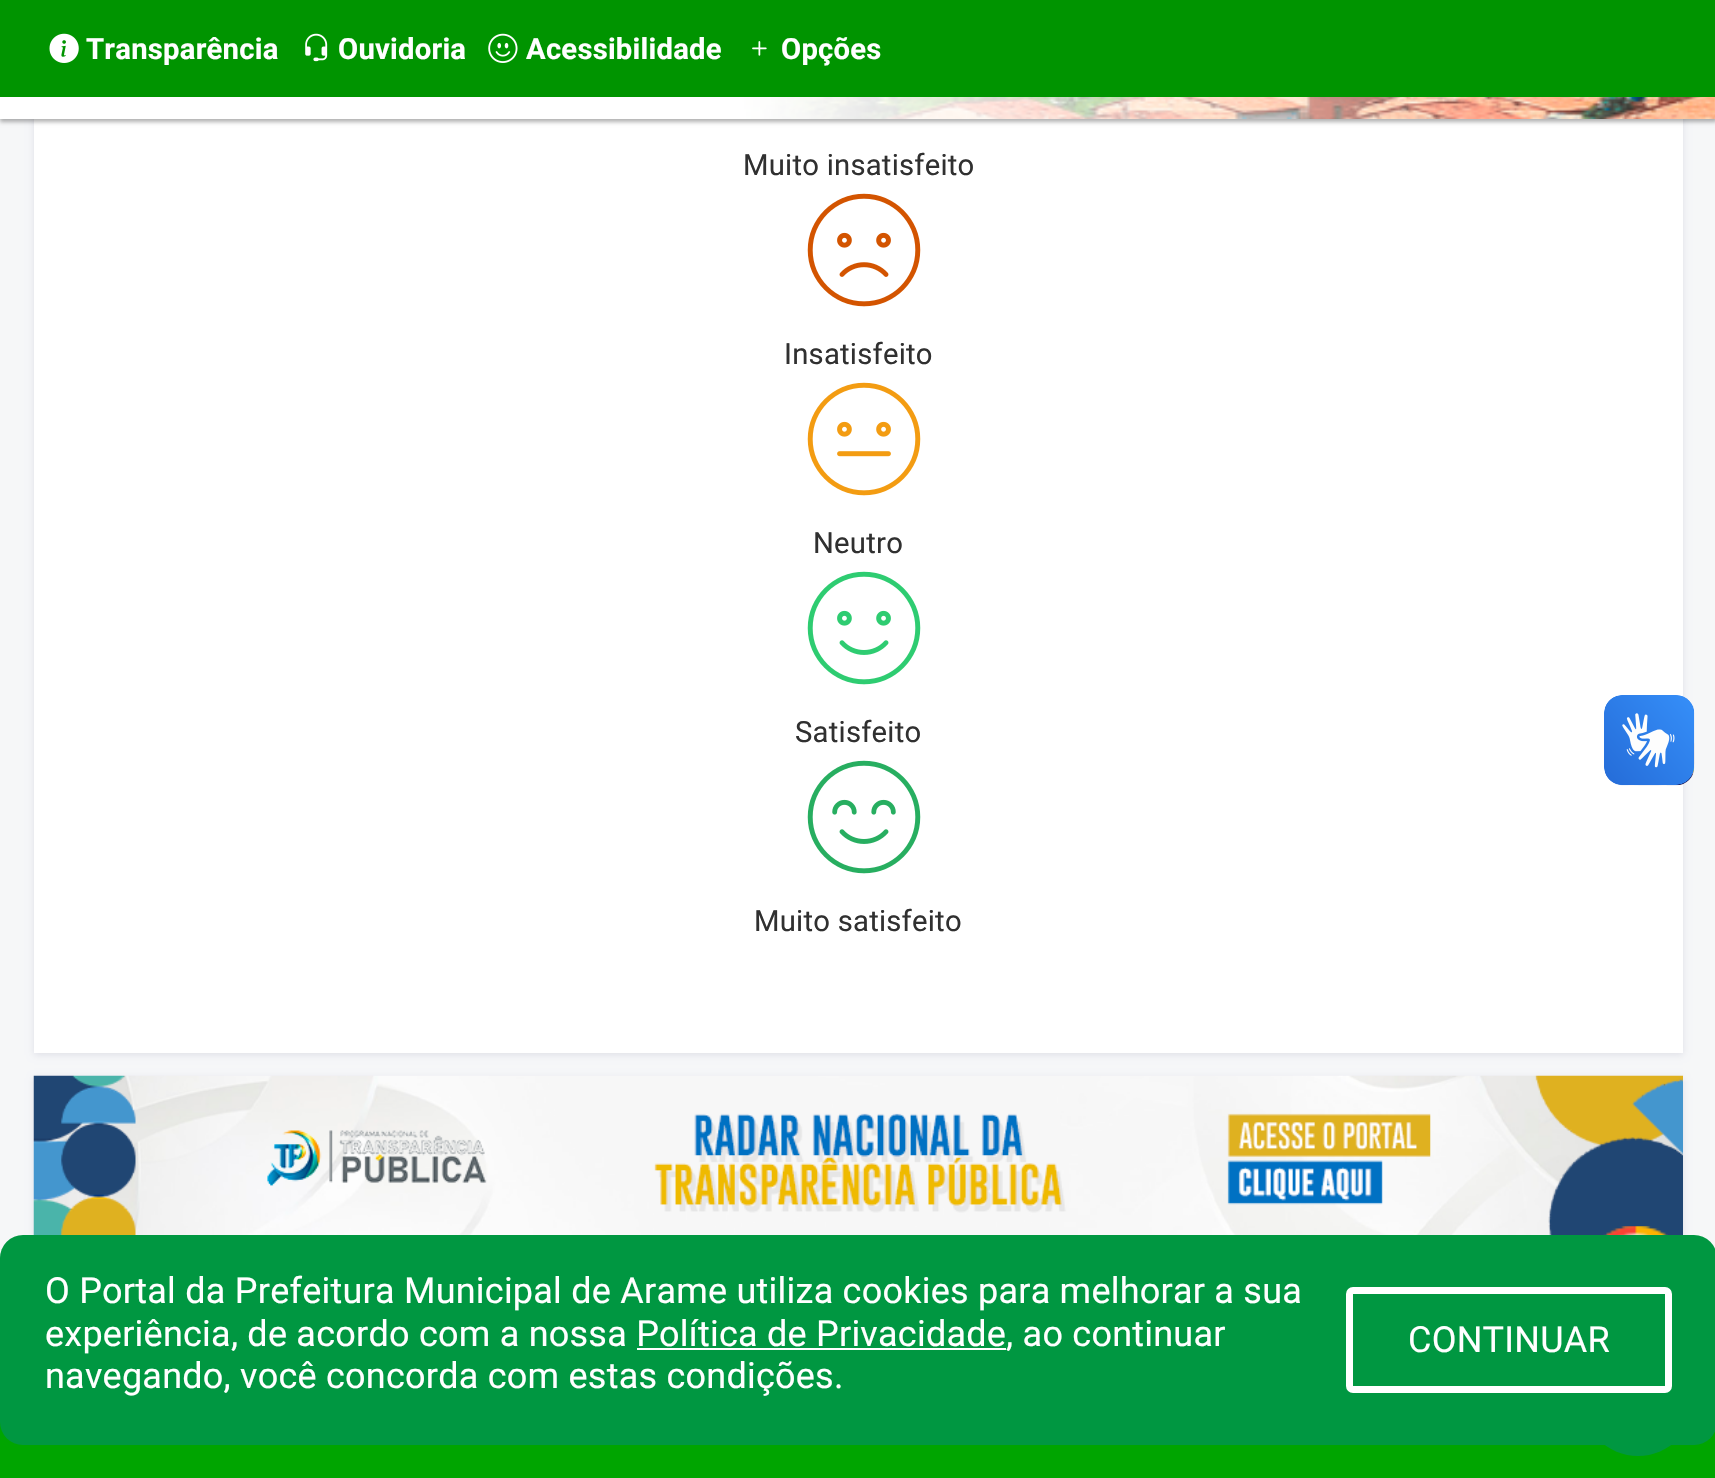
void draw(SkCanvas* canvas) {
	SkPaint paint;
	paint.setAntiAlias(true);
	auto spacedText = [&](const char* s, float x, float y, const SkFont& font, const SkPaint& ink, float letter, float word) {
		std::vector<SkGlyphID> glyphs(font.countText(s, strlen(s), SkTextEncoding::kUTF8));
		std::vector<float> xs(glyphs.size());
		font.textToGlyphs(s, strlen(s), SkTextEncoding::kUTF8, glyphs);
		font.getXPos(glyphs, xs, x);
		float extra = 0;
		for (size_t i = 0; i < glyphs.size(); i++) {
			xs[i] += extra;
			extra += letter + word * (glyphs[i] == font.unicharToGlyph(' '));
		}
		canvas->drawTextBlob(SkTextBlob::MakeFromPosHGlyphs(glyphs, xs, y, font), 0, 0, ink);
	};
	canvas->clear(0xfff6f7f8);
	paint.setColor(0x17030047);
	paint.setMaskFilter(SkMaskFilter::MakeBlur(kNormal_SkBlurStyle, 3.5));
	canvas->drawRect(SkRect::MakeXYWH(34, -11, 1649, 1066), paint);
	paint.setMaskFilter(nullptr);
	paint.setColor(0xffffffff);
	canvas->drawRect(SkRect::MakeXYWH(34, 119, 1649, 934), paint);
	paint.setColor(0x4d000000);
	paint.setMaskFilter(SkMaskFilter::MakeBlur(kNormal_SkBlurStyle, 2));
	canvas->drawRect(SkRect::MakeXYWH(0, 2, 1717, 120), paint);
	paint.setMaskFilter(nullptr);
	canvas->drawImageRect(SkImages::DeferredFromEncodedData(SkData::MakeFromFileName("img1.png")), SkRect::MakeXYWH(0, 97, 1715, 22), SkSamplingOptions());
	paint.setColor(0xff009400);
	canvas->drawRect(SkRect::MakeXYWH(0, 0, 1715, 97), paint);
	canvas->drawImageRect(SkImages::DeferredFromEncodedData(SkData::MakeFromFileName("img2.png")), SkRect::MakeXYWH(49, 33, 30, 30), SkSamplingOptions());
	SkFont f1(fontMgr->matchFamilyStyle("Roboto", SkFontStyle::Bold()), 29.25);
	f1.setSubpixel(true);
	paint.setColor(0xffffffff);
	spacedText("Transparência", 86, 59, f1, paint, 0.23, 0);
	canvas->drawImageRect(SkImages::DeferredFromEncodedData(SkData::MakeFromFileName("img3.png")), SkRect::MakeXYWH(305, 33, 23, 29), SkSamplingOptions());
	spacedText("Ouvidoria", 338, 59, f1, paint, 0.23, 0);
	canvas->drawImageRect(SkImages::DeferredFromEncodedData(SkData::MakeFromFileName("img4.png")), SkRect::MakeXYWH(488, 33, 30, 30), SkSamplingOptions());
	spacedText("Acessibilidade", 526, 59, f1, paint, 0.23, 0);
	canvas->drawImageRect(SkImages::DeferredFromEncodedData(SkData::MakeFromFileName("img5.png")), SkRect::MakeXYWH(752, 41, 15, 15), SkSamplingOptions());
	spacedText("Opções", 781, 59, f1, paint, 0.23, 0);
	SkFont f2(fontMgr->matchFamilyStyle("Roboto", SkFontStyle::Normal()), 29.25);
	f2.setSubpixel(true);
	paint.setColor(0xff303030);
	spacedText("Muito insatisfeito", 743, 175, f2, paint, 0.23, 0);
	canvas->drawImageRect(SkImages::DeferredFromEncodedData(SkData::MakeFromFileName("img6.png")), SkRect::MakeXYWH(807, 193, 114, 114), SkSamplingOptions());
	spacedText("Insatisfeito", 784, 364, f2, paint, 0.23, 0);
	canvas->drawImageRect(SkImages::DeferredFromEncodedData(SkData::MakeFromFileName("img7.png")), SkRect::MakeXYWH(807, 382, 114, 114), SkSamplingOptions());
	spacedText("Neutro", 813, 553, f2, paint, 0.23, 0);
	canvas->drawImageRect(SkImages::DeferredFromEncodedData(SkData::MakeFromFileName("img8.png")), SkRect::MakeXYWH(807, 571, 114, 114), SkSamplingOptions());
	spacedText("Satisfeito", 795, 742, f2, paint, 0.23, 0);
	canvas->drawImageRect(SkImages::DeferredFromEncodedData(SkData::MakeFromFileName("img9.png")), SkRect::MakeXYWH(807, 760, 114, 114), SkSamplingOptions());
	spacedText("Muito satisfeito", 754, 931, f2, paint, 0.23, 0);
	canvas->drawImageRect(SkImages::DeferredFromEncodedData(SkData::MakeFromFileName("img10.png")), SkRect::MakeXYWH(1604, 695, 91, 91), SkSamplingOptions());
	canvas->drawImageRect(SkImages::DeferredFromEncodedData(SkData::MakeFromFileName("img11.png")), SkRect::MakeXYWH(1604, 695, 90, 90), SkSamplingOptions());
	paint.setColor(0x17030047);
	paint.setMaskFilter(SkMaskFilter::MakeBlur(kNormal_SkBlurStyle, 3.5));
	canvas->drawRect(SkRect::MakeXYWH(34, 1078, 1649, 164), paint);
	paint.setMaskFilter(nullptr);
	canvas->drawImageRect(SkImages::DeferredFromEncodedData(SkData::MakeFromFileName("img12.png")), SkRect::MakeXYWH(33, 1075, 1650, 160), SkSamplingOptions());
	canvas->drawImageRect(SkImages::DeferredFromEncodedData(SkData::MakeFromFileName("img13.png")), SkRect::MakeXYWH(1603, 1226, 65, 9), SkSamplingOptions());
	paint.setColor(0xff00a500);
	canvas->drawRect(SkRect::MakeXYWH(0, 1422, 1715, 56), paint);
	paint.setColor(0xff009741);
	canvas->drawRoundRect(SkRect::MakeXYWH(1582, 1343, 112, 113), 56, 56, paint);
	canvas->drawRoundRect(SkRect::MakeXYWH(0, 1235, 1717, 210), 23, 23, paint);
	SkFont f3(fontMgr->matchFamilyStyle("Roboto", SkFontStyle::Normal()), 36);
	f3.setSubpixel(true);
	paint.setColor(0xffffffff);
	spacedText("O Portal da Prefeitura Municipal de Arame utiliza cookies para melhorar a sua", 45, 1303, f3, paint, 0.23, 0);
	spacedText("experiência, de acordo com a nossa Política de Privacidade, ao continuar", 45, 1346, f3, paint, 0.23, 0);
	canvas->drawRect(SkRect::MakeXYWH(637, 1348, 369, 2), paint);
	spacedText("navegando, você concorda com estas condições.", 45, 1388, f3, paint, 0.23, 0);
	paint.setStroke(true);
	paint.setStrokeWidth(7);
	canvas->drawRoundRect(SkRect::MakeXYWH(1349.5, 1290.5, 319, 99), 3.5, 3.5, paint);
	paint.setStroke(false);
	spacedText("CONTINUAR", 1408, 1352, f3, paint, 0.23, 0);
}
